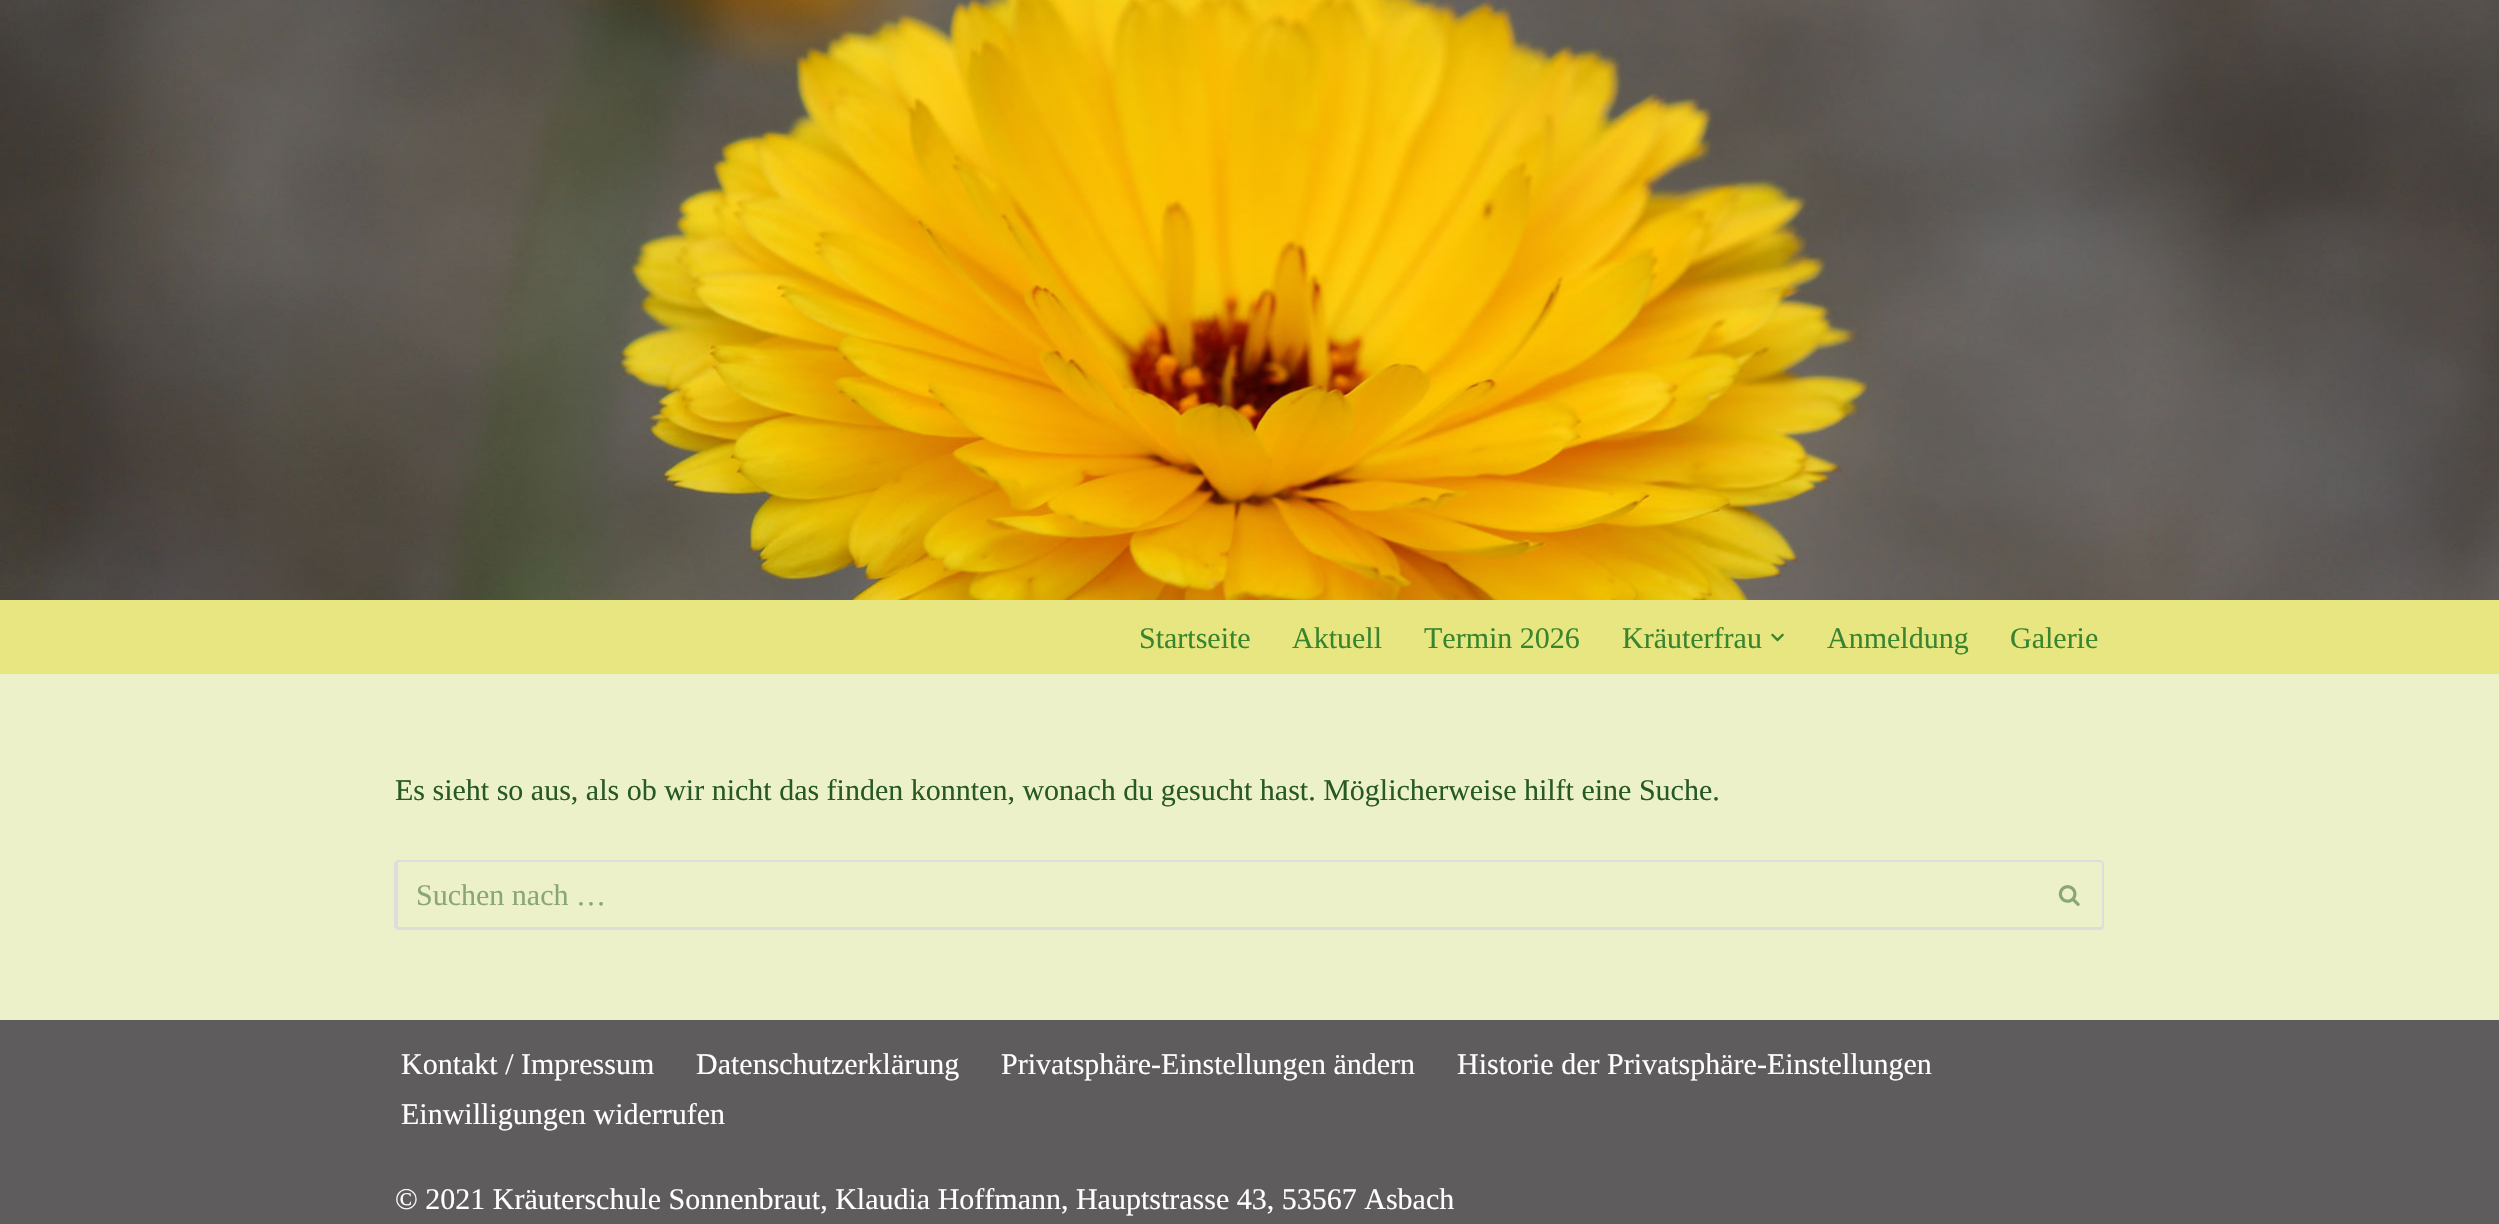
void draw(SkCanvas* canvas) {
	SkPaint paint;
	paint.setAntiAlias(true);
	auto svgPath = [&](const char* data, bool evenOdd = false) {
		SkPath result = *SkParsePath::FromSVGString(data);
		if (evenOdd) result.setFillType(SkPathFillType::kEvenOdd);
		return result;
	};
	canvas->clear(0xffecf1ca);
	canvas->drawImageRect(SkImages::DeferredFromEncodedData(SkData::MakeFromFileName("img1.png")), SkRect::MakeXYWH(0, 0, 2499, 600), SkSamplingOptions());
	paint.setColor(0xffe7e681);
	canvas->drawRect(SkRect::MakeXYWH(0, 600, 2499, 74), paint);
	SkFont f1(fontMgr->matchFamilyStyle("Liberation Serif", SkFontStyle::Normal()), 30);
	f1.setSubpixel(true);
	paint.setColor(0xff39842e);
	canvas->drawString("Startseite", 1139, 648, f1, paint);
	canvas->drawString("Aktuell", 1292, 648, f1, paint);
	canvas->drawString("Termin 2026", 1424, 648, f1, paint);
	canvas->drawString("Kräuterfrau", 1622, 648, f1, paint);
	canvas->drawImageRect(SkImages::DeferredFromEncodedData(SkData::MakeFromFileName("img2.png")), SkRect::MakeXYWH(1771, 633, 13, 9), SkSamplingOptions());
	canvas->drawString("Anmeldung", 1827, 648, f1, paint);
	canvas->drawString("Galerie", 2010, 648, f1, paint);
	paint.setColor(0xff275925);
	canvas->drawString("Es sieht so aus, als ob wir nicht das finden konnten, wonach du gesucht hast. Möglicherweise hilft eine Suche.", 395, 800, f1, paint);
	paint.setColor(0xffdddddd);
	canvas->drawPath(svgPath("M399 860H2037V930H399C397 930 394 928 394 926V864C394 862 397 860 399 860ZM399 862H2037V927H399C398 927 398 926 398 926V864C398 863 398 862 399 862Z", true), paint);
	paint.setColor(0xff8aa578);
	canvas->drawString("Suchen nach …", 416, 905, f1, paint);
	paint.setColor(0xffdddddd);
	canvas->drawPath(svgPath("M2037 860H2100C2102 860 2104 862 2104 864V926C2104 928 2102 930 2100 930H2037ZM2037 862H2100C2101 862 2102 863 2102 864V926C2102 926 2101 927 2100 927H2037Z", true), paint);
	canvas->drawImageRect(SkImages::DeferredFromEncodedData(SkData::MakeFromFileName("img3.png")), SkRect::MakeXYWH(2058, 885, 22, 21), SkSamplingOptions());
	paint.setColor(0xff5e5c5c);
	canvas->drawRect(SkRect::MakeXYWH(0, 1020, 2499, 204), paint);
	paint.setColor(0xffffffff);
	canvas->drawString("Kontakt / Impressum", 401, 1074, f1, paint);
	canvas->drawString("Datenschutzerklärung", 696, 1074, f1, paint);
	canvas->drawString("Privatsphäre-Einstellungen ändern", 1001, 1074, f1, paint);
	canvas->drawString("Historie der Privatsphäre-Einstellungen", 1457, 1074, f1, paint);
	canvas->drawString("Einwilligungen widerrufen", 401, 1124, f1, paint);
	canvas->drawString("© 2021 Kräuterschule Sonnenbraut, Klaudia Hoffmann, Hauptstrasse 43, 53567 Asbach", 395, 1209, f1, paint);
}
